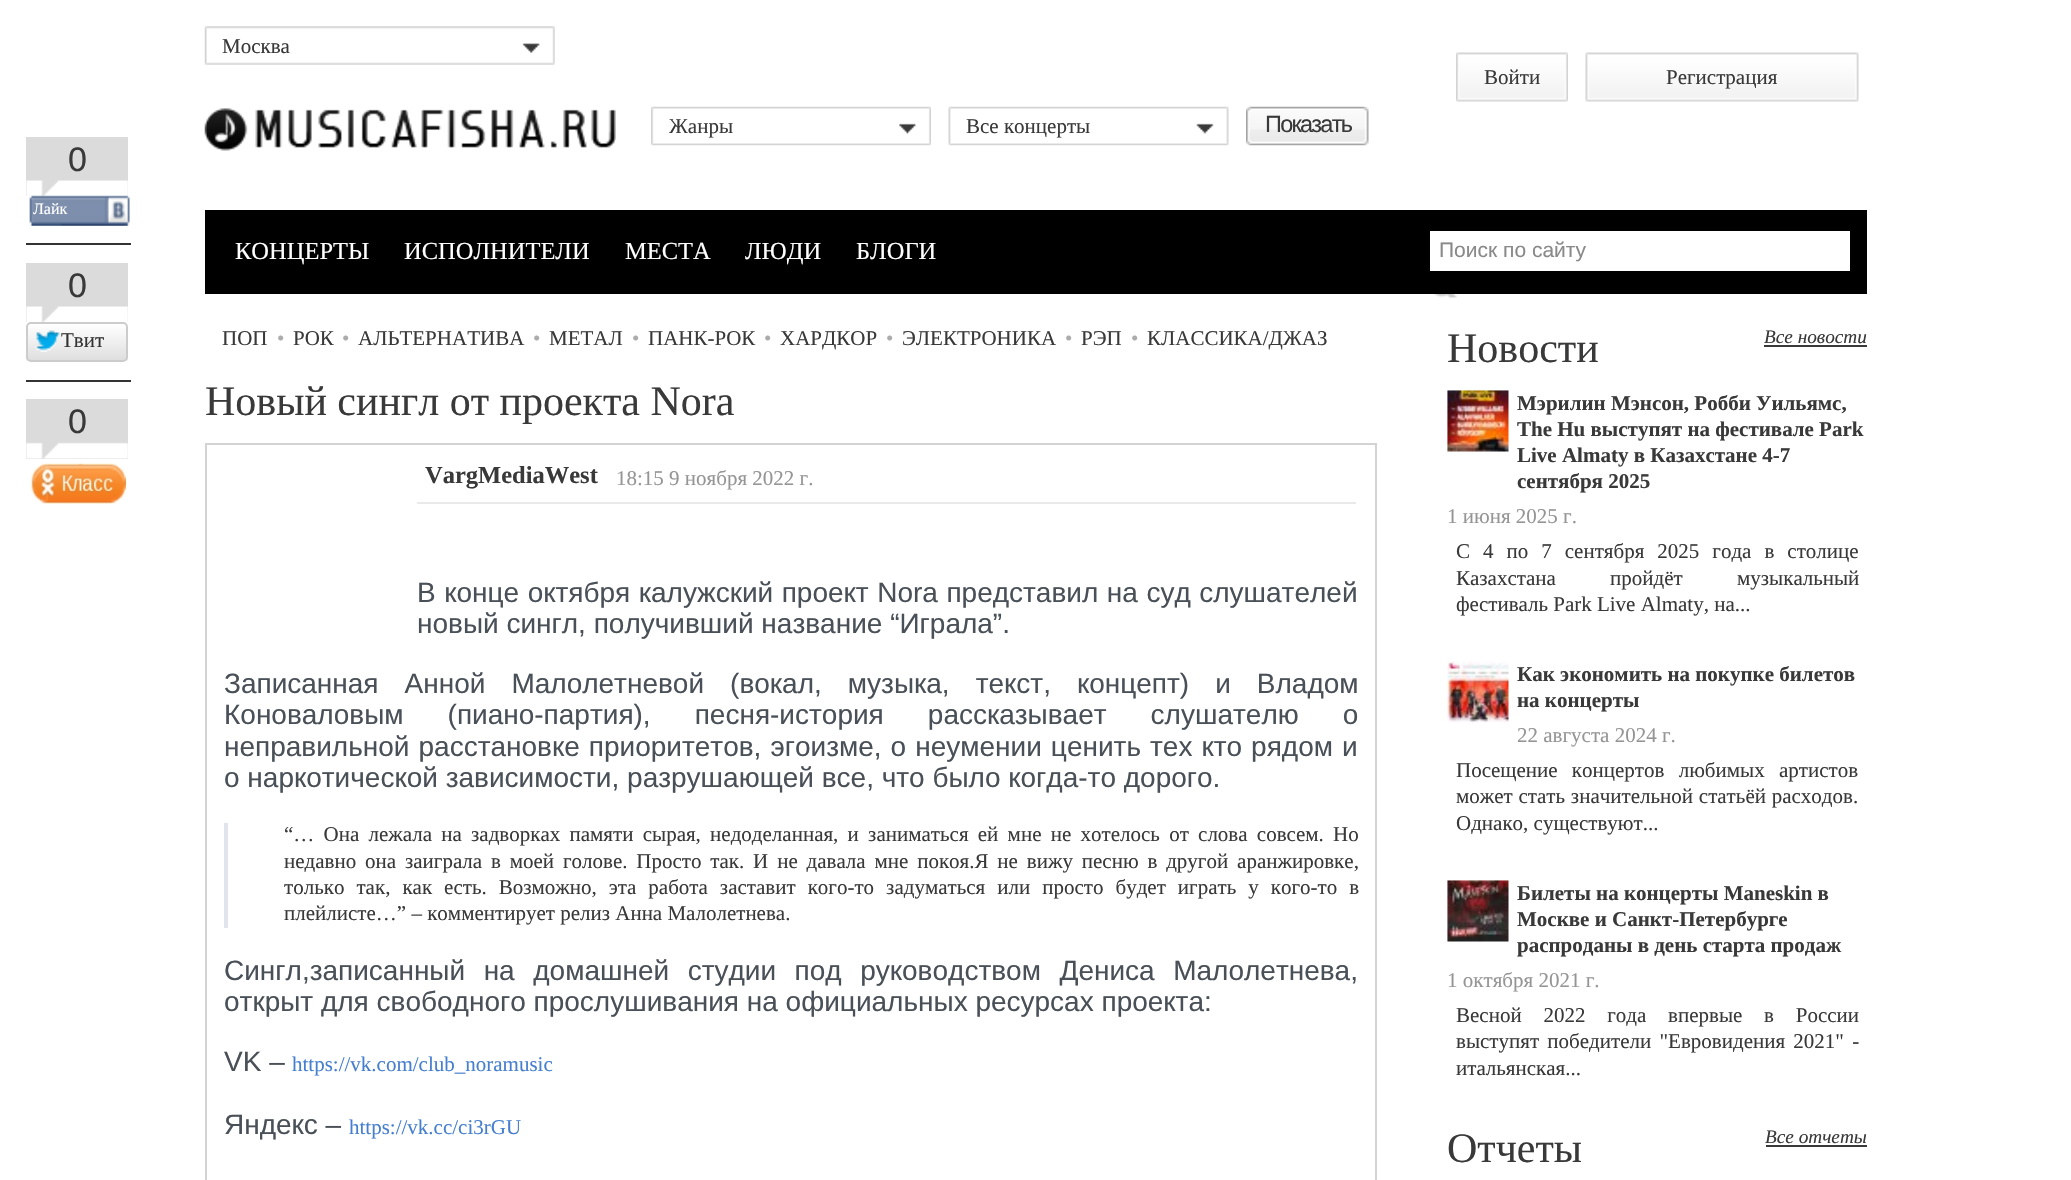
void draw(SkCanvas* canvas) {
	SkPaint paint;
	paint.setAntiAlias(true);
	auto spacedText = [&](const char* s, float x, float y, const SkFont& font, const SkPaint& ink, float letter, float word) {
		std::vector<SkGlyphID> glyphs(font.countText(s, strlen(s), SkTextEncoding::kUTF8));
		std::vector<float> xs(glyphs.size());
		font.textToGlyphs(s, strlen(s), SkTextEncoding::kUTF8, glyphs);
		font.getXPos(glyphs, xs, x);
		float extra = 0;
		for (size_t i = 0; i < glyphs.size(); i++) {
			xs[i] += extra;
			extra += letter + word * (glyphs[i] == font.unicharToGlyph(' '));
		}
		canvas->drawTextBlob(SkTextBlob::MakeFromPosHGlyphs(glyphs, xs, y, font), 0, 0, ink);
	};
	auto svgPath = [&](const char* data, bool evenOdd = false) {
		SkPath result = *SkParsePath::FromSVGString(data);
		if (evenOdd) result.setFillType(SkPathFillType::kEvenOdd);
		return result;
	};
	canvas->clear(0xffffffff);
	paint.setColor(0xff333333);
	canvas->drawRect(SkRect::MakeXYWH(26, 243, 105, 2), paint);
	paint.setColor(0xffdbdbdb);
	canvas->drawRect(SkRect::MakeXYWH(26, 137, 102, 59), paint);
	canvas->drawImageRect(SkImages::DeferredFromEncodedData(SkData::MakeFromFileName("img1.png")), SkRect::MakeXYWH(26, 180, 102, 16), SkSamplingOptions());
	SkFont f1(fontMgr->matchFamilyStyle("Liberation Sans", SkFontStyle::Normal()), 34);
	f1.setSubpixel(true);
	paint.setColor(0xff393939);
	canvas->drawString("0", 68, 171, f1, paint);
	canvas->drawImageRect(SkImages::DeferredFromEncodedData(SkData::MakeFromFileName("img2.png")), SkRect::MakeXYWH(29, 195, 101, 31), SkSamplingOptions());
	SkFont f2(fontMgr->matchFamilyStyle("Liberation Serif", SkFontStyle::Normal()), 16);
	f2.setSubpixel(true);
	paint.setColor(0xffffffff);
	canvas->drawString("Лайк", 33, 214, f2, paint);
	paint.setColor(0xff333333);
	canvas->drawRect(SkRect::MakeXYWH(26, 380, 105, 2), paint);
	paint.setColor(0xffdbdbdb);
	canvas->drawRect(SkRect::MakeXYWH(26, 263, 102, 59), paint);
	canvas->drawImageRect(SkImages::DeferredFromEncodedData(SkData::MakeFromFileName("img1.png")), SkRect::MakeXYWH(26, 306, 102, 16), SkSamplingOptions());
	paint.setColor(0xff393939);
	canvas->drawString("0", 68, 297, f1, paint);
	canvas->save();
	canvas->clipPath(svgPath("M31 322H123C126 322 128 324 128 327V357C128 360 126 362 123 362H31C28 362 26 360 26 357V327C26 324 28 322 31 322Z"), true);
	{
		const SkColor colors[] = {0xffffffff, 0xffdedede};
		const float stops[] = {0, 1};
		const SkPoint ends[] = {{28, 324}, {28, 361}};
		paint.setShader(SkGradientShader::MakeLinear(ends, colors, stops, 2, SkTileMode::kClamp));
		paint.setAlpha(255);
	}
	canvas->drawRect(SkRect::MakeXYWH(26, 324, 102, 37), paint);
	canvas->restore();
	paint.setStroke(true);
	paint.setStrokeWidth(2);
	paint.setShader(nullptr);
	paint.setColor(0xffcccccc);
	canvas->drawRoundRect(SkRect::MakeXYWH(27, 323, 100, 38), 4, 4, paint);
	canvas->drawImageRect(SkImages::DeferredFromEncodedData(SkData::MakeFromFileName("img3.png")), SkRect::MakeXYWH(35, 330, 25, 22), SkSamplingOptions());
	SkFont f3(fontMgr->matchFamilyStyle("Liberation Serif", SkFontStyle::Normal()), 21);
	f3.setSubpixel(true);
	paint.setStroke(false);
	paint.setColor(0xff333333);
	canvas->drawString("Твит", 61, 347, f3, paint);
	paint.setColor(0xffdbdbdb);
	canvas->drawRect(SkRect::MakeXYWH(26, 399, 102, 60), paint);
	canvas->drawImageRect(SkImages::DeferredFromEncodedData(SkData::MakeFromFileName("img4.png")), SkRect::MakeXYWH(26, 442, 102, 17), SkSamplingOptions());
	paint.setColor(0xff393939);
	canvas->drawString("0", 68, 433, f1, paint);
	canvas->drawImageRect(SkImages::DeferredFromEncodedData(SkData::MakeFromFileName("img5.png")), SkRect::MakeXYWH(31, 463, 96, 41), SkSamplingOptions());
	canvas->drawImageRect(SkImages::DeferredFromEncodedData(SkData::MakeFromFileName("img6.png")), SkRect::MakeXYWH(204, 26, 351, 39), SkSamplingOptions());
	canvas->drawString("Москва", 222, 53, f3, paint);
	canvas->drawImageRect(SkImages::DeferredFromEncodedData(SkData::MakeFromFileName("img7.png")), SkRect::MakeXYWH(1456, 52, 112, 50), SkSamplingOptions());
	canvas->drawString("Войти", 1484, 84, f3, paint);
	canvas->drawImageRect(SkImages::DeferredFromEncodedData(SkData::MakeFromFileName("img8.png")), SkRect::MakeXYWH(1585, 52, 274, 50), SkSamplingOptions());
	canvas->drawString("Регистрация", 1666, 84, f3, paint);
	canvas->drawImageRect(SkImages::DeferredFromEncodedData(SkData::MakeFromFileName("img9.png")), SkRect::MakeXYWH(204, 108, 412, 43), SkSamplingOptions());
	canvas->drawImageRect(SkImages::DeferredFromEncodedData(SkData::MakeFromFileName("img10.png")), SkRect::MakeXYWH(651, 106, 280, 40), SkSamplingOptions());
	canvas->drawString("Жанры", 669, 133, f3, paint);
	canvas->drawImageRect(SkImages::DeferredFromEncodedData(SkData::MakeFromFileName("img11.png")), SkRect::MakeXYWH(948, 106, 281, 40), SkSamplingOptions());
	canvas->drawString("Все концерты", 966, 133, f3, paint);
	canvas->drawImageRect(SkImages::DeferredFromEncodedData(SkData::MakeFromFileName("img12.png")), SkRect::MakeXYWH(1246, 106, 123, 40), SkSamplingOptions());
	SkFont f4(fontMgr->matchFamilyStyle("Liberation Sans", SkFontStyle::Normal()), 23.5);
	f4.setSubpixel(true);
	spacedText("Показать", 1265, 132, f4, paint, -1.75, 0);
	paint.setColor(0xff000000);
	canvas->drawRect(SkRect::MakeXYWH(205, 210, 1662, 84), paint);
	SkFont f5(fontMgr->matchFamilyStyle("Liberation Serif", SkFontStyle::Normal()), 24.5);
	f5.setSubpixel(true);
	paint.setColor(0xffffffff);
	canvas->drawString("КОНЦЕРТЫ", 235, 259, f5, paint);
	canvas->drawString("ИСПОЛНИТЕЛИ", 404, 259, f5, paint);
	canvas->drawString("МЕСТА", 625, 259, f5, paint);
	canvas->drawString("ЛЮДИ", 745, 259, f5, paint);
	canvas->drawString("БЛОГИ", 856, 259, f5, paint);
	canvas->drawRect(SkRect::MakeXYWH(1430, 231, 420, 40), paint);
	SkFont f6(fontMgr->matchFamilyStyle("Liberation Sans", SkFontStyle::Normal()), 21);
	f6.setSubpixel(true);
	paint.setColor(0xff898989);
	canvas->drawString("Поиск по сайту", 1439, 257, f6, paint);
	canvas->drawImageRect(SkImages::DeferredFromEncodedData(SkData::MakeFromFileName("img13.png")), SkRect::MakeXYWH(1434, 294, 23, 4), SkSamplingOptions());
	paint.setColor(0xff393939);
	canvas->drawString("ПОП", 222, 345, f3, paint);
	paint.setColor(0xffacacac);
	canvas->drawString("•", 277, 345, f3, paint);
	paint.setColor(0xff393939);
	canvas->drawString("РОК", 293, 345, f3, paint);
	paint.setColor(0xffacacac);
	canvas->drawString("•", 342, 345, f3, paint);
	paint.setColor(0xff393939);
	canvas->drawString("АЛЬТЕРНАТИВА", 358, 345, f3, paint);
	paint.setColor(0xffacacac);
	canvas->drawString("•", 533, 345, f3, paint);
	paint.setColor(0xff393939);
	canvas->drawString("МЕТАЛ", 549, 345, f3, paint);
	paint.setColor(0xffacacac);
	canvas->drawString("•", 632, 345, f3, paint);
	paint.setColor(0xff393939);
	canvas->drawString("ПАНК-РОК", 648, 345, f3, paint);
	paint.setColor(0xffacacac);
	canvas->drawString("•", 764, 345, f3, paint);
	paint.setColor(0xff393939);
	canvas->drawString("ХАРДКОР", 780, 345, f3, paint);
	paint.setColor(0xffacacac);
	canvas->drawString("•", 886, 345, f3, paint);
	paint.setColor(0xff393939);
	canvas->drawString("ЭЛЕКТРОНИКА", 902, 345, f3, paint);
	paint.setColor(0xffacacac);
	canvas->drawString("•", 1065, 345, f3, paint);
	paint.setColor(0xff393939);
	canvas->drawString("РЭП", 1081, 345, f3, paint);
	paint.setColor(0xffacacac);
	canvas->drawString("•", 1131, 345, f3, paint);
	paint.setColor(0xff393939);
	canvas->drawString("КЛАССИКА/ДЖАЗ", 1147, 345, f3, paint);
	SkFont f7(fontMgr->matchFamilyStyle("Liberation Serif", SkFontStyle::Normal()), 42);
	f7.setSubpixel(true);
	canvas->drawString("Новый сингл от проекта Nora", 205, 415, f7, paint);
	paint.setStroke(true);
	paint.setColor(0xffd3d3d3);
	canvas->drawRect(SkRect::MakeXYWH(206, 444, 1170, 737), paint);
	paint.setStroke(false);
	paint.setColor(0xffe9e9e9);
	canvas->drawRect(SkRect::MakeXYWH(417, 502, 939, 2), paint);
	SkFont f8(fontMgr->matchFamilyStyle("Liberation Serif", SkFontStyle::Bold()), 24.5);
	f8.setSubpixel(true);
	paint.setColor(0xff393939);
	canvas->drawString("VargMediaWest", 425, 483, f8, paint);
	paint.setColor(0xff959595);
	canvas->drawString("18:15 9 ноября 2022 г.", 616, 485, f3, paint);
	SkFont f9(fontMgr->matchFamilyStyle("Liberation Sans", SkFontStyle::Normal()), 28);
	f9.setSubpixel(true);
	paint.setColor(0xff495057);
	spacedText("В конце октября калужский проект Nora представил на суд слушателей", 417, 602, f9, paint, 0, 0.75);
	canvas->drawString("новый сингл, получивший название “Играла”.", 417, 633, f9, paint);
	spacedText("Записанная Анной Малолетневой (вокал, музыка, текст, концепт) и Владом", 224, 693, f9, paint, 0, 18.25);
	spacedText("Коноваловым (пиано-партия), песня-история рассказывает слушателю о", 224, 724, f9, paint, 0, 36.25);
	spacedText("неправильной расстановке приоритетов, эгоизме, о неумении ценить тех кто рядом и", 224, 756, f9, paint, 0, 1.25);
	canvas->drawString("о наркотической зависимости, разрушающей все, что было когда-то дорого.", 224, 787, f9, paint);
	paint.setColor(0xffe0e5ec);
	canvas->drawRect(SkRect::MakeXYWH(224, 823, 4, 105), paint);
	paint.setColor(0xff393939);
	spacedText("“… Она лежала на задворках памяти сырая, недоделанная, и заниматься ей мне не хотелось от слова совсем. Но", 284, 841, f3, paint, 0, 4);
	spacedText("недавно она заиграла в моей голове. Просто так. И не давала мне покоя.Я не вижу песню в другой аранжировке,", 284, 868, f3, paint, 0, 3.6);
	spacedText("только так, как есть. Возможно, эта работа заставит кого-то задуматься или просто будет играть у кого-то в", 284, 894, f3, paint, 0, 6.75);
	canvas->drawString("плейлисте…” – комментирует релиз Анна Малолетнева.", 284, 920, f3, paint);
	paint.setColor(0xff495057);
	spacedText("Сингл,записанный на домашней студии под руководством Дениса Малолетнева,", 224, 980, f9, paint, 0, 10.75);
	canvas->drawString("открыт для свободного прослушивания на официальных ресурсах проекта:", 224, 1011, f9, paint);
	canvas->drawString("VK –", 224, 1071, f9, paint);
	paint.setColor(0xff467fcf);
	canvas->drawString("https://vk.com/club_noramusic", 292, 1071, f3, paint);
	paint.setColor(0xff495057);
	canvas->drawString("Яндекс –", 224, 1134, f9, paint);
	paint.setColor(0xff467fcf);
	canvas->drawString("https://vk.cc/ci3rGU", 349, 1134, f3, paint);
	paint.setColor(0xff393939);
	canvas->drawString("Новости", 1447, 362, f7, paint);
	SkFont f10(fontMgr->matchFamilyStyle("Liberation Serif", SkFontStyle::Italic()), 19.25);
	f10.setSubpixel(true);
	canvas->drawString("Все новости", 1764, 343, f10, paint);
	canvas->drawRect(SkRect::MakeXYWH(1764, 345, 103, 2), paint);
	canvas->drawImageRect(SkImages::DeferredFromEncodedData(SkData::MakeFromFileName("img14.png")), SkRect::MakeXYWH(1447, 390, 62, 62), SkSamplingOptions());
	SkFont f11(fontMgr->matchFamilyStyle("Liberation Serif", SkFontStyle::Bold()), 21);
	f11.setSubpixel(true);
	canvas->drawString("Мэрилин Мэнсон, Робби Уильямс,", 1517, 410, f11, paint);
	canvas->drawString("The Hu выступят на фестивале Park", 1517, 436, f11, paint);
	canvas->drawString("Live Almaty в Казахстане 4-7", 1517, 462, f11, paint);
	canvas->drawString("сентября 2025", 1517, 488, f11, paint);
	paint.setColor(0xff959595);
	canvas->drawString("1 июня 2025 г.", 1447, 523, f3, paint);
	paint.setColor(0xff393939);
	spacedText("С 4 по 7 сентября 2025 года в столице", 1456, 558, f3, paint, 0, 7.75);
	spacedText("Казахстана пройдёт музыкальный", 1456, 585, f3, paint, 0, 49);
	canvas->drawString("фестиваль Park Live Almaty, на...", 1456, 611, f3, paint);
	canvas->drawImageRect(SkImages::DeferredFromEncodedData(SkData::MakeFromFileName("img15.png")), SkRect::MakeXYWH(1447, 661, 62, 62), SkSamplingOptions());
	canvas->drawString("Как экономить на покупке билетов", 1517, 681, f11, paint);
	canvas->drawString("на концерты", 1517, 707, f11, paint);
	paint.setColor(0xff959595);
	canvas->drawString("22 августа 2024 г.", 1517, 742, f3, paint);
	paint.setColor(0xff393939);
	spacedText("Посещение концертов любимых артистов", 1456, 777, f3, paint, 0, 9);
	spacedText("может стать значительной статьёй расходов.", 1456, 803, f3, paint, 0, 0.5);
	canvas->drawString("Однако, существуют...", 1456, 830, f3, paint);
	canvas->drawImageRect(SkImages::DeferredFromEncodedData(SkData::MakeFromFileName("img16.png")), SkRect::MakeXYWH(1447, 880, 62, 62), SkSamplingOptions());
	canvas->drawString("Билеты на концерты Maneskin в", 1517, 900, f11, paint);
	canvas->drawString("Москве и Санкт-Петербурге", 1517, 926, f11, paint);
	canvas->drawString("распроданы в день старта продаж", 1517, 952, f11, paint);
	paint.setColor(0xff959595);
	canvas->drawString("1 октября 2021 г.", 1447, 987, f3, paint);
	paint.setColor(0xff393939);
	spacedText("Весной 2022 года впервые в России", 1456, 1022, f3, paint, 0, 16.5);
	spacedText("выступят победители \"Евровидения 2021\" -", 1456, 1048, f3, paint, 0, 3);
	canvas->drawString("итальянская...", 1456, 1075, f3, paint);
	canvas->drawString("Отчеты", 1447, 1162, f7, paint);
	canvas->drawString("Все отчеты", 1765, 1143, f10, paint);
	canvas->drawRect(SkRect::MakeXYWH(1766, 1145, 101, 2), paint);
}
